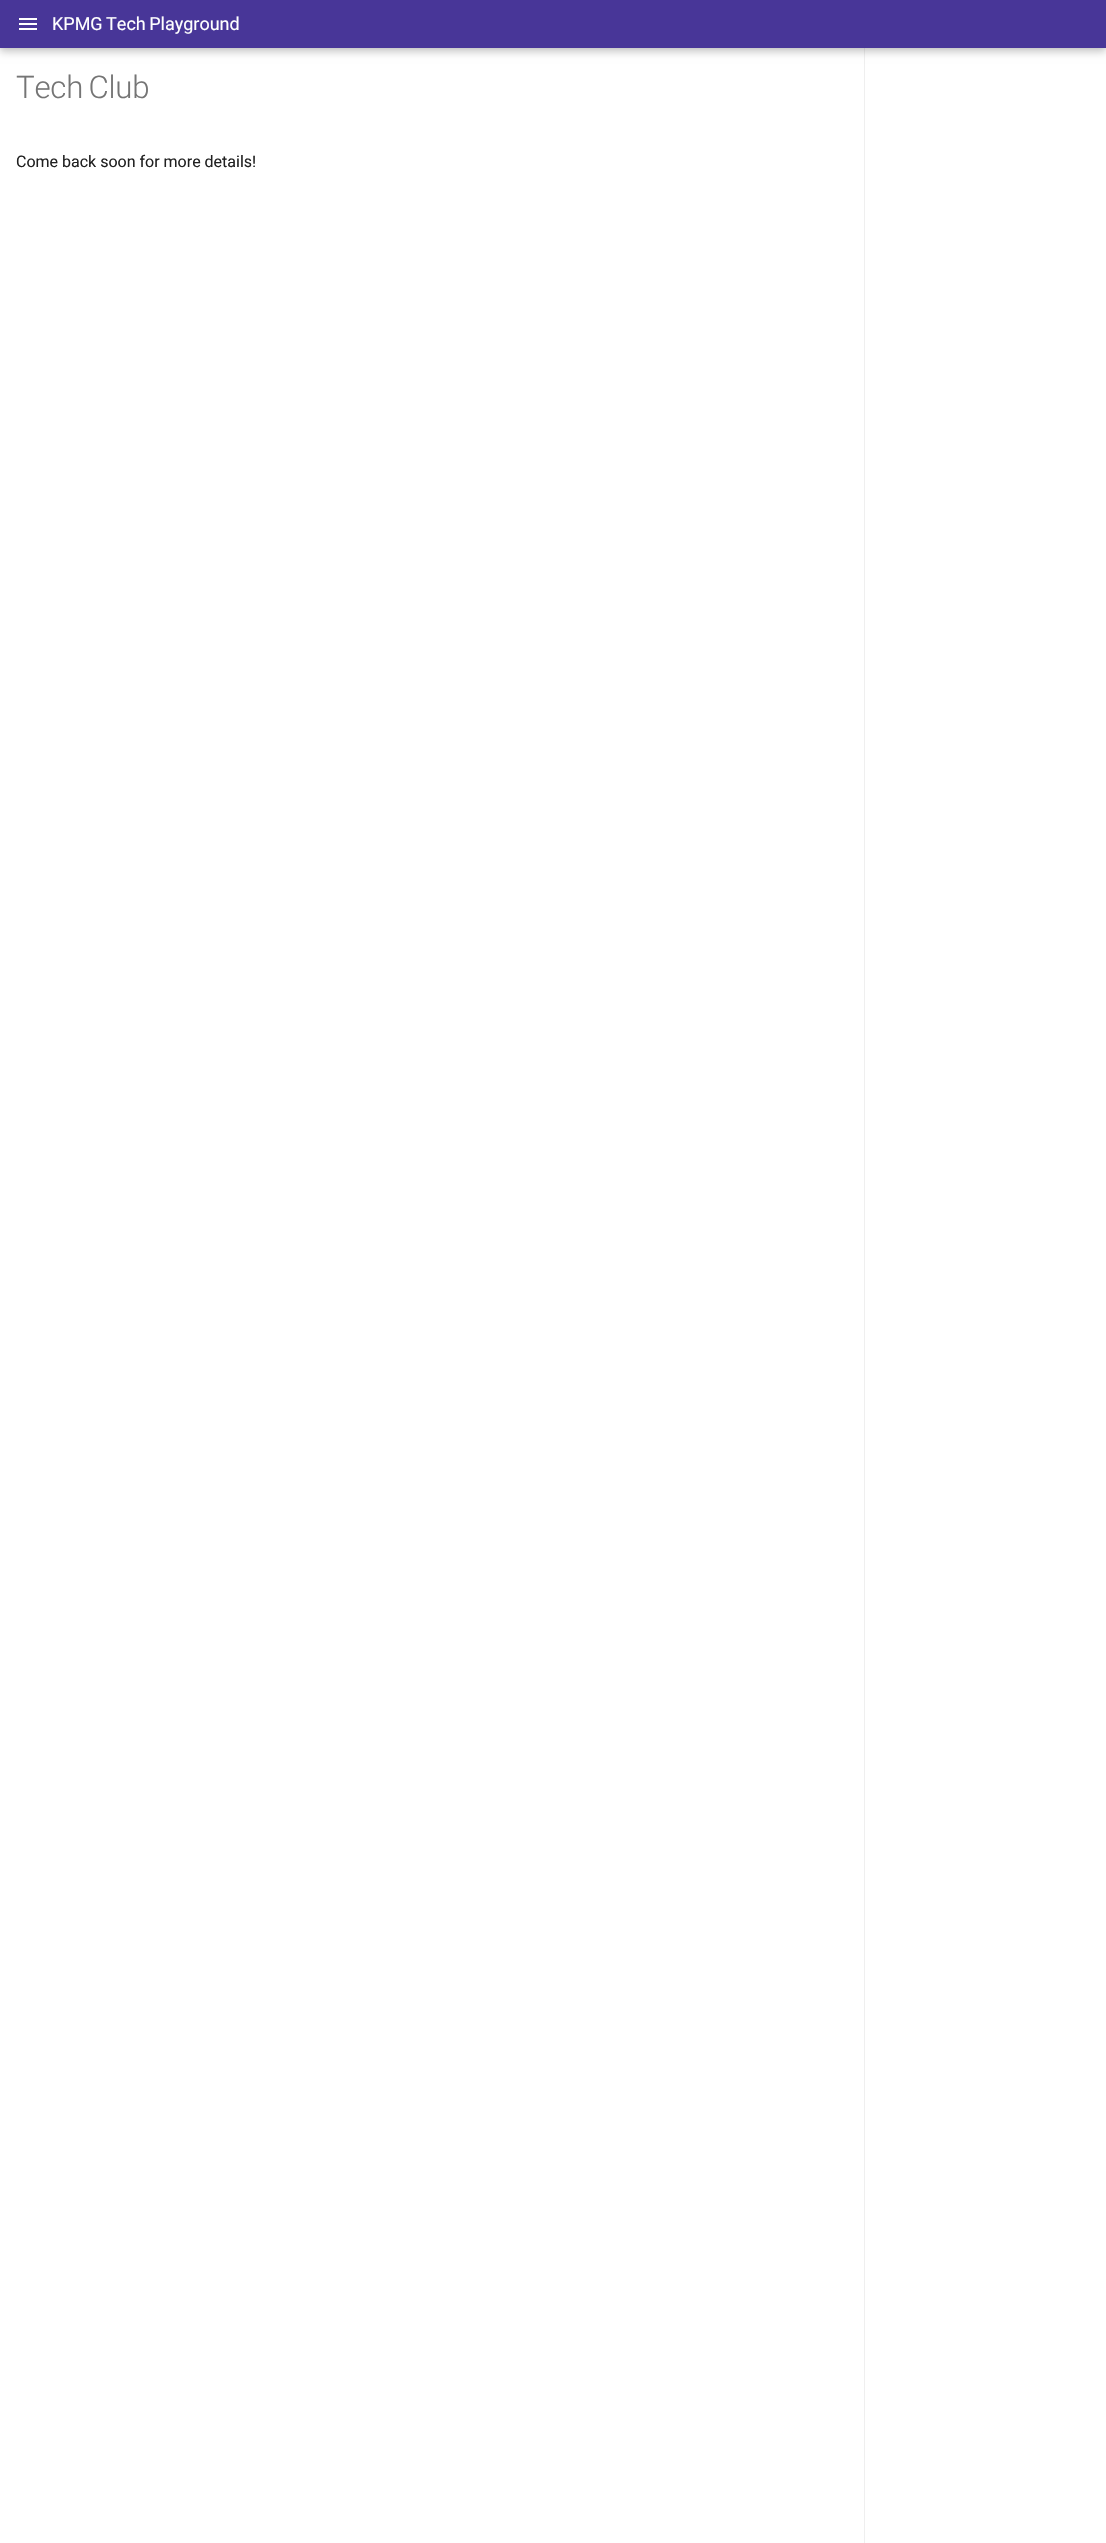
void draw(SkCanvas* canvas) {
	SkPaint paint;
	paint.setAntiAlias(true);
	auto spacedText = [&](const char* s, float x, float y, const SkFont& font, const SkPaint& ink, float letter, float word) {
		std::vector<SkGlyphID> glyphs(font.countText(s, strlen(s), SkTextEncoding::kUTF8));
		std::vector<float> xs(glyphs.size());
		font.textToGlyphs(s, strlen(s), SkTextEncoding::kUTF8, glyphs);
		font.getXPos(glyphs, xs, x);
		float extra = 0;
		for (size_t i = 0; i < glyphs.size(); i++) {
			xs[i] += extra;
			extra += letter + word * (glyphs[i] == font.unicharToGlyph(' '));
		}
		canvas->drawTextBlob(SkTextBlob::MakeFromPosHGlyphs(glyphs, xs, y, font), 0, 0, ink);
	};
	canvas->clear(0xffffffff);
	paint.setColor(0xffefefef);
	canvas->drawRect(SkRect::MakeXYWH(864, 48, 1, 2495), paint);
	paint.setColor(0x33000000);
	paint.setMaskFilter(SkMaskFilter::MakeBlur(kNormal_SkBlurStyle, 4));
	canvas->drawRect(SkRect::MakeXYWH(0, 4, 1106, 48), paint);
	paint.setMaskFilter(nullptr);
	paint.setColor(0x1a000000);
	paint.setMaskFilter(SkMaskFilter::MakeBlur(kNormal_SkBlurStyle, 2));
	canvas->drawRect(SkRect::MakeXYWH(0, 0, 1106, 48), paint);
	paint.setMaskFilter(nullptr);
	paint.setColor(0xff483698);
	canvas->drawRect(SkRect::MakeXYWH(0, 0, 1106, 48), paint);
	canvas->drawImageRect(SkImages::DeferredFromEncodedData(SkData::MakeFromFileName("img1.png")), SkRect::MakeXYWH(19, 18, 18, 12), SkSamplingOptions());
	SkFont f1(fontMgr->matchFamilyStyle("Roboto", SkFontStyle::Normal()), 18);
	f1.setSubpixel(true);
	paint.setColor(0xffffffff);
	spacedText("KPMG Tech Playground", 52, 30, f1, paint, 0, -1);
	SkFont f2(fontMgr->matchFamilyStyle("Roboto", SkFontStyle(300, SkFontStyle::kNormal_Width, SkFontStyle::kUpright_Slant)), 31.25);
	f2.setSubpixel(true);
	paint.setColor(0xff757575);
	spacedText("Tech Club", 16, 98, f2, paint, -0.25, -2);
	SkFont f3(fontMgr->matchFamilyStyle("Roboto", SkFontStyle::Normal()), 16);
	f3.setSubpixel(true);
	paint.setColor(0xff212121);
	canvas->drawString("Come back soon for more details!", 16, 167, f3, paint);
}
